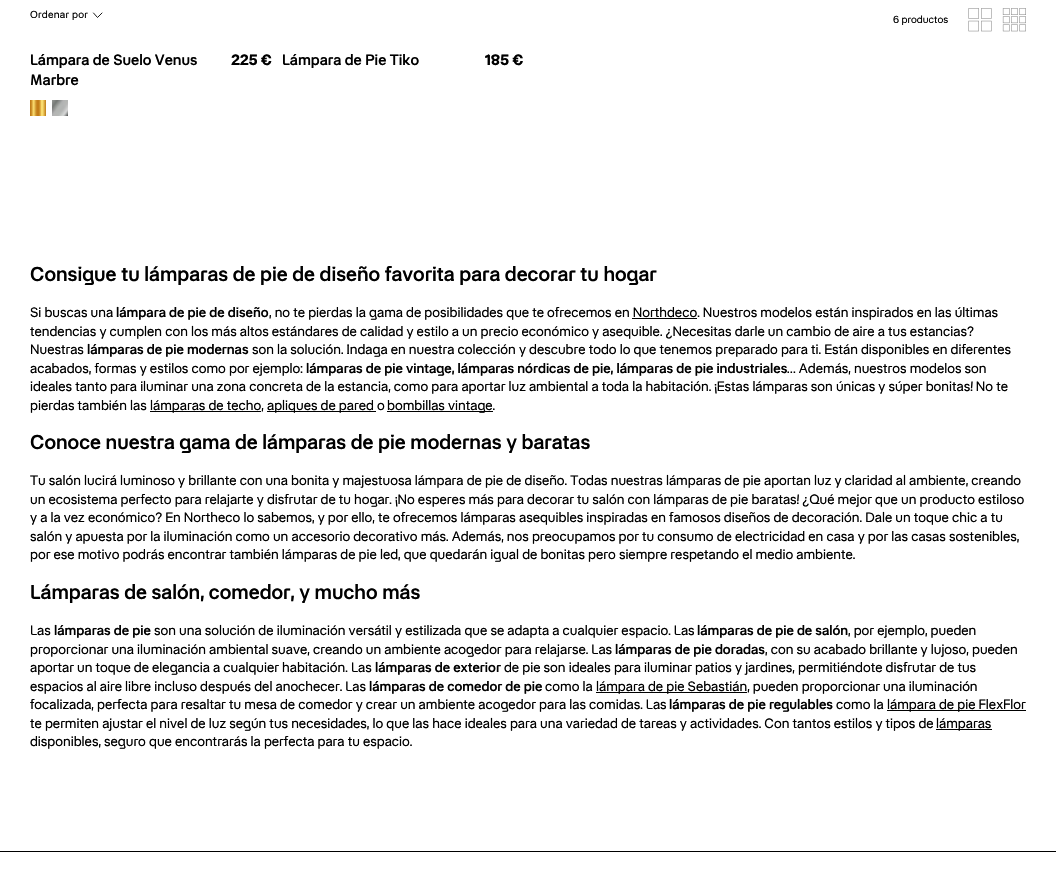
void draw(SkCanvas* canvas) {
	SkPaint paint;
	paint.setAntiAlias(true);
	auto spacedText = [&](const char* s, float x, float y, const SkFont& font, const SkPaint& ink, float letter, float word) {
		std::vector<SkGlyphID> glyphs(font.countText(s, strlen(s), SkTextEncoding::kUTF8));
		std::vector<float> xs(glyphs.size());
		font.textToGlyphs(s, strlen(s), SkTextEncoding::kUTF8, glyphs);
		font.getXPos(glyphs, xs, x);
		float extra = 0;
		for (size_t i = 0; i < glyphs.size(); i++) {
			xs[i] += extra;
			extra += letter + word * (glyphs[i] == font.unicharToGlyph(' '));
		}
		canvas->drawTextBlob(SkTextBlob::MakeFromPosHGlyphs(glyphs, xs, y, font), 0, 0, ink);
	};
	auto svgPath = [&](const char* data, bool evenOdd = false) {
		SkPath result = *SkParsePath::FromSVGString(data);
		if (evenOdd) result.setFillType(SkPathFillType::kEvenOdd);
		return result;
	};
	canvas->clear(0xffffffff);
	SkFont f1(fontMgr->matchFamilyStyle("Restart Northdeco", SkFontStyle::Normal()), 10.25);
	f1.setSubpixel(true);
	paint.setColor(0xff000000);
	spacedText("Ordenar por", 30, 18, f1, paint, 0.25, 0);
	paint.setStroke(true);
	paint.setStrokeWidth(0.9);
	paint.setStrokeCap(SkPaint::kRound_Cap);
	paint.setStrokeJoin(SkPaint::kRound_Join);
	canvas->drawPath(svgPath("M102 13L97.5 17.5L93.5 13"), paint);
	paint.setStroke(false);
	canvas->drawString("6 productos", 893, 23, f1, paint);
	canvas->drawImageRect(SkImages::DeferredFromEncodedData(SkData::MakeFromFileName("img1.png")), SkRect::MakeXYWH(968, 8, 24, 24), SkSamplingOptions());
	canvas->drawImageRect(SkImages::DeferredFromEncodedData(SkData::MakeFromFileName("img2.png")), SkRect::MakeXYWH(1002, 8, 24, 24), SkSamplingOptions());
	SkFont f2(fontMgr->matchFamilyStyle("Restart Northdeco", SkFontStyle(500, SkFontStyle::kNormal_Width, SkFontStyle::kUpright_Slant)), 15);
	f2.setSubpixel(true);
	canvas->drawString("Lámpara de Suelo Venus", 30, 65, f2, paint);
	canvas->drawString("Marbre", 30, 85, f2, paint);
	SkFont f3(fontMgr->matchFamilyStyle("Restart Northdeco", SkFontStyle(600, SkFontStyle::kNormal_Width, SkFontStyle::kUpright_Slant)), 15);
	f3.setSubpixel(true);
	canvas->drawString("225 €", 231, 65, f3, paint);
	canvas->drawImageRect(SkImages::DeferredFromEncodedData(SkData::MakeFromFileName("img3.png")), SkRect::MakeXYWH(30, 100, 16, 16), SkSamplingOptions());
	canvas->drawImageRect(SkImages::DeferredFromEncodedData(SkData::MakeFromFileName("img4.png")), SkRect::MakeXYWH(52, 100, 16, 16), SkSamplingOptions());
	canvas->drawString("Lámpara de Pie Tiko", 282, 65, f2, paint);
	canvas->drawString("185 €", 485, 65, f3, paint);
	SkFont f4(fontMgr->matchFamilyStyle("Restart Northdeco", SkFontStyle(500, SkFontStyle::kNormal_Width, SkFontStyle::kUpright_Slant)), 20.15);
	f4.setSubpixel(true);
	canvas->drawString("Consigue tu lámparas de pie de diseño favorita para decorar tu hogar", 30, 281, f4, paint);
	SkFont f5(fontMgr->matchFamilyStyle("Restart Northdeco", SkFontStyle::Normal()), 13.6);
	f5.setSubpixel(true);
	canvas->drawString("Si buscas una", 30, 317, f5, paint);
	SkFont f6(fontMgr->matchFamilyStyle("Restart Northdeco", SkFontStyle(500, SkFontStyle::kNormal_Width, SkFontStyle::kUpright_Slant)), 13.6);
	f6.setSubpixel(true);
	canvas->drawString("lámpara de pie de diseño", 116, 317, f6, paint);
	canvas->drawString(", no te pierdas la gama de posibilidades que te ofrecemos en Northdeco. Nuestros modelos están inspirados en las últimas", 269, 317, f5, paint);
	canvas->drawRect(SkRect::MakeXYWH(632, 318, 65, 1), paint);
	canvas->drawString("tendencias y cumplen con los más altos estándares de calidad y estilo a un precio económico y asequible. ¿Necesitas darle un cambio de aire a tus estancias?", 30, 336, f5, paint);
	canvas->drawString("Nuestras", 30, 354, f5, paint);
	canvas->drawString("lámparas de pie modernas", 87, 354, f6, paint);
	canvas->drawString("son la solución. Indaga en nuestra colección y descubre todo lo que tenemos preparado para ti. Están disponibles en diferentes", 252, 354, f5, paint);
	canvas->drawString("acabados, formas y estilos como por ejemplo:", 30, 373, f5, paint);
	canvas->drawString("lámparas de pie vintage, lámparas nórdicas de pie, lámparas de pie industriales", 306, 373, f6, paint);
	canvas->drawString("… Además, nuestros modelos son", 787, 373, f5, paint);
	canvas->drawString("ideales tanto para iluminar una zona concreta de la estancia, como para aportar luz ambiental a toda la habitación. ¡Estas lámparas son únicas y súper bonitas! No te", 30, 391, f5, paint);
	canvas->drawString("pierdas también las", 30, 410, f5, paint);
	canvas->drawRect(SkRect::MakeXYWH(150, 411, 111, 1), paint);
	canvas->drawString("lámparas de techo,", 150, 410, f5, paint);
	canvas->drawRect(SkRect::MakeXYWH(267, 411, 109, 1), paint);
	canvas->drawString("apliques de pared o", 267, 410, f5, paint);
	canvas->drawRect(SkRect::MakeXYWH(387, 411, 106, 1), paint);
	canvas->drawString("bombillas vintage.", 387, 410, f5, paint);
	canvas->drawString("Conoce nuestra gama de lámparas de pie modernas y baratas", 30, 449, f4, paint);
	canvas->drawString("Tu salón lucirá luminoso y brillante con una bonita y majestuosa lámpara de pie de diseño. Todas nuestras lámparas de pie aportan luz y claridad al ambiente, creando", 30, 485, f5, paint);
	canvas->drawString("un ecosistema perfecto para relajarte y disfrutar de tu hogar. ¡No esperes más para decorar tu salón con lámparas de pie baratas! ¿Qué mejor que un producto estiloso", 30, 504, f5, paint);
	canvas->drawString("y a la vez económico? En Northeco lo sabemos, y por ello, te ofrecemos lámparas asequibles inspiradas en famosos diseños de decoración. Dale un toque chic a tu", 30, 522, f5, paint);
	canvas->drawString("salón y apuesta por la iluminación como un accesorio decorativo más. Además, nos preocupamos por tu consumo de electricidad en casa y por las casas sostenibles,", 30, 541, f5, paint);
	canvas->drawString("por ese motivo podrás encontrar también lámparas de pie led, que quedarán igual de bonitas pero siempre respetando el medio ambiente.", 30, 559, f5, paint);
	canvas->drawString("Lámparas de salón, comedor, y mucho más", 30, 599, f4, paint);
	canvas->drawString("Las", 30, 635, f5, paint);
	canvas->drawString("lámparas de pie", 54, 635, f6, paint);
	canvas->drawString("son una solución de iluminación versátil y estilizada que se adapta a cualquier espacio. Las", 154, 635, f5, paint);
	canvas->drawString("lámparas de pie de salón", 697, 635, f6, paint);
	canvas->drawString(", por ejemplo, pueden", 848, 635, f5, paint);
	canvas->drawString("proporcionar una iluminación ambiental suave, creando un ambiente acogedor para relajarse. Las", 30, 654, f5, paint);
	canvas->drawString("lámparas de pie doradas", 615, 654, f6, paint);
	canvas->drawString(", con su acabado brillante y lujoso, pueden", 765, 654, f5, paint);
	canvas->drawString("aportar un toque de elegancia a cualquier habitación. Las", 30, 672, f5, paint);
	canvas->drawString("lámparas de exterior", 375, 672, f6, paint);
	canvas->drawString("de pie son ideales para iluminar patios y jardines, permitiéndote disfrutar de tus", 504, 672, f5, paint);
	canvas->drawString("espacios al aire libre incluso después del anochecer. Las", 30, 691, f5, paint);
	canvas->drawString("lámparas de comedor de pie", 369, 691, f6, paint);
	canvas->drawString("como la", 545, 691, f5, paint);
	canvas->drawRect(SkRect::MakeXYWH(596, 692, 151, 1), paint);
	canvas->drawString("lámpara de pie Sebastián, pueden proporcionar una iluminación", 596, 691, f5, paint);
	canvas->drawString("focalizada, perfecta para resaltar tu mesa de comedor y crear un ambiente acogedor para las comidas. Las", 30, 709, f5, paint);
	canvas->drawString("lámparas de pie regulables", 669, 709, f6, paint);
	canvas->drawString("como la", 836, 709, f5, paint);
	canvas->drawRect(SkRect::MakeXYWH(887, 710, 139, 1), paint);
	canvas->drawString("lámpara de pie FlexFlor", 887, 709, f5, paint);
	canvas->drawString("te permiten ajustar el nivel de luz según tus necesidades, lo que las hace ideales para una variedad de tareas y actividades. Con tantos estilos y tipos de", 30, 728, f5, paint);
	canvas->drawRect(SkRect::MakeXYWH(936, 729, 56, 1), paint);
	canvas->drawString("lámparas", 936, 728, f5, paint);
	canvas->drawString("disponibles, seguro que encontrarás la perfecta para tu espacio.", 30, 746, f5, paint);
	canvas->drawRect(SkRect::MakeXYWH(0, 851, 1056, 1), paint);
}
